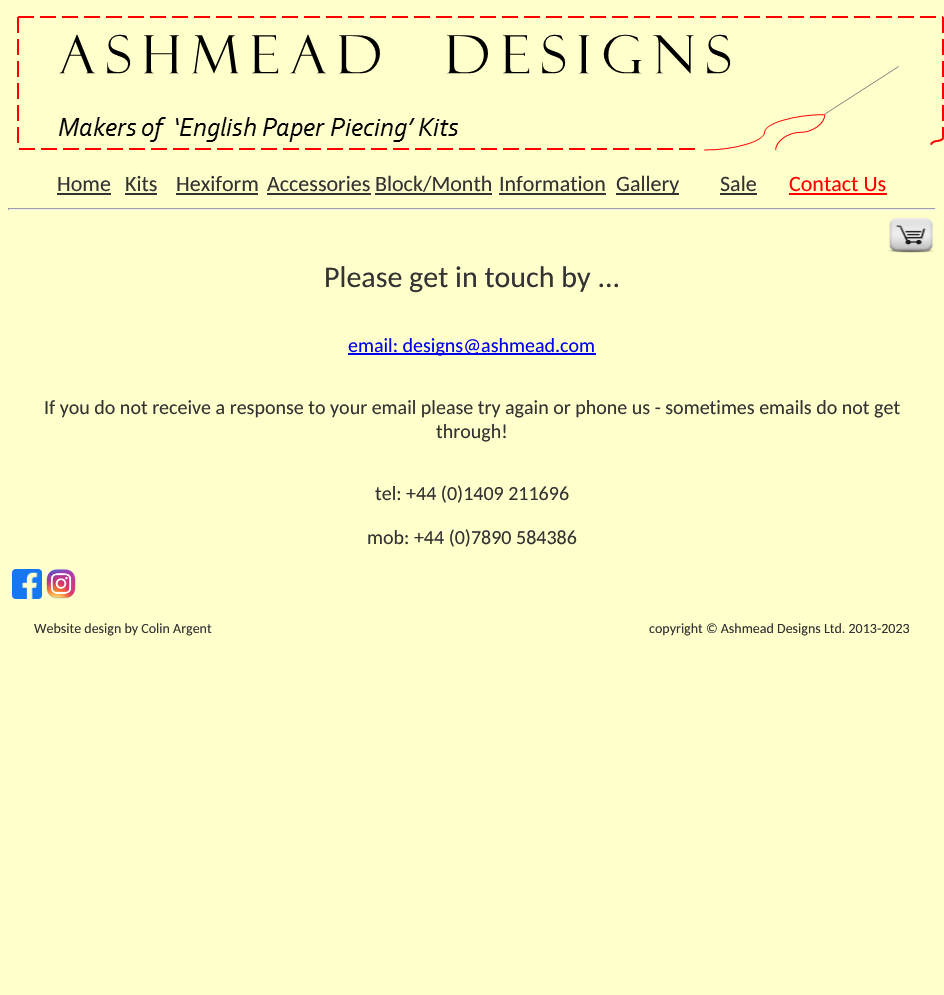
void draw(SkCanvas* canvas) {
	SkPaint paint;
	paint.setAntiAlias(true);
	canvas->clear(0xffffffcc);
	canvas->drawImageRect(SkImages::DeferredFromEncodedData(SkData::MakeFromFileName("img1.png")), SkRect::MakeXYWH(17, 16, 927, 135), SkSamplingOptions());
	SkFont f1(fontMgr->matchFamilyStyle("Carlito", SkFontStyle::Normal()), 22);
	f1.setSubpixel(true);
	paint.setColor(0xff333333);
	canvas->drawString("Home", 57, 191, f1, paint);
	canvas->drawRect(SkRect::MakeXYWH(57, 193, 54, 2), paint);
	canvas->drawString("Kits", 125, 191, f1, paint);
	canvas->drawRect(SkRect::MakeXYWH(125, 193, 32, 2), paint);
	canvas->drawString("Hexiform", 176, 191, f1, paint);
	canvas->drawRect(SkRect::MakeXYWH(176, 193, 82, 2), paint);
	canvas->drawString("Accessories", 267, 191, f1, paint);
	canvas->drawRect(SkRect::MakeXYWH(267, 193, 104, 2), paint);
	canvas->drawString("Block/Month", 375, 191, f1, paint);
	canvas->drawRect(SkRect::MakeXYWH(375, 193, 117, 2), paint);
	canvas->drawString("Information", 499, 191, f1, paint);
	canvas->drawRect(SkRect::MakeXYWH(499, 193, 107, 2), paint);
	canvas->drawRect(SkRect::MakeXYWH(616, 193, 63, 2), paint);
	canvas->drawString("Gallery", 616, 191, f1, paint);
	canvas->drawString("Sale", 720, 191, f1, paint);
	canvas->drawRect(SkRect::MakeXYWH(720, 193, 37, 2), paint);
	paint.setColor(0xffff0000);
	canvas->drawString("Contact Us", 789, 191, f1, paint);
	canvas->drawRect(SkRect::MakeXYWH(789, 193, 98, 2), paint);
	paint.setColor(0xff9f9f9f);
	canvas->drawRect(SkRect::MakeXYWH(8, 208, 928, 1), paint);
	paint.setColor(0xffeeeeee);
	canvas->drawRect(SkRect::MakeXYWH(935, 208, 1, 2), paint);
	canvas->drawRect(SkRect::MakeXYWH(8, 209, 928, 1), paint);
	paint.setColor(0xff9f9f9f);
	canvas->drawRect(SkRect::MakeXYWH(8, 208, 1, 2), paint);
	canvas->drawImageRect(SkImages::DeferredFromEncodedData(SkData::MakeFromFileName("img2.png")), SkRect::MakeXYWH(888, 218, 46, 35), SkSamplingOptions());
	SkFont f2(fontMgr->matchFamilyStyle("Carlito", SkFontStyle::Normal()), 30);
	f2.setSubpixel(true);
	paint.setColor(0xff333333);
	canvas->drawString("Please get in touch by ...", 324, 287, f2, paint);
	paint.setColor(0xff0000ee);
	canvas->drawRect(SkRect::MakeXYWH(348, 353, 248, 2), paint);
	SkFont f3(fontMgr->matchFamilyStyle("Carlito", SkFontStyle::Normal()), 20);
	f3.setSubpixel(true);
	canvas->drawString("email: designs@ashmead.com", 348, 352, f3, paint);
	paint.setColor(0xff333333);
	canvas->drawString("If you do not receive a response to your email please try again or phone us - sometimes emails do not get", 44, 414, f3, paint);
	canvas->drawString("through!", 436, 438, f3, paint);
	canvas->drawString("tel: +44 (0)1409 211696", 375, 500, f3, paint);
	canvas->drawString("mob: +44 (0)7890 584386", 367, 544, f3, paint);
	canvas->drawImageRect(SkImages::DeferredFromEncodedData(SkData::MakeFromFileName("img3.png")), SkRect::MakeXYWH(12, 569, 30, 30), SkSamplingOptions());
	canvas->drawImageRect(SkImages::DeferredFromEncodedData(SkData::MakeFromFileName("img4.png")), SkRect::MakeXYWH(46, 569, 30, 30), SkSamplingOptions());
	SkFont f4(fontMgr->matchFamilyStyle("Carlito", SkFontStyle::Normal()), 14);
	f4.setSubpixel(true);
	canvas->drawString("Website design by Colin Argent", 34, 633, f4, paint);
	canvas->drawString("copyright © Ashmead Designs Ltd. 2013-2023", 649, 633, f4, paint);
}
